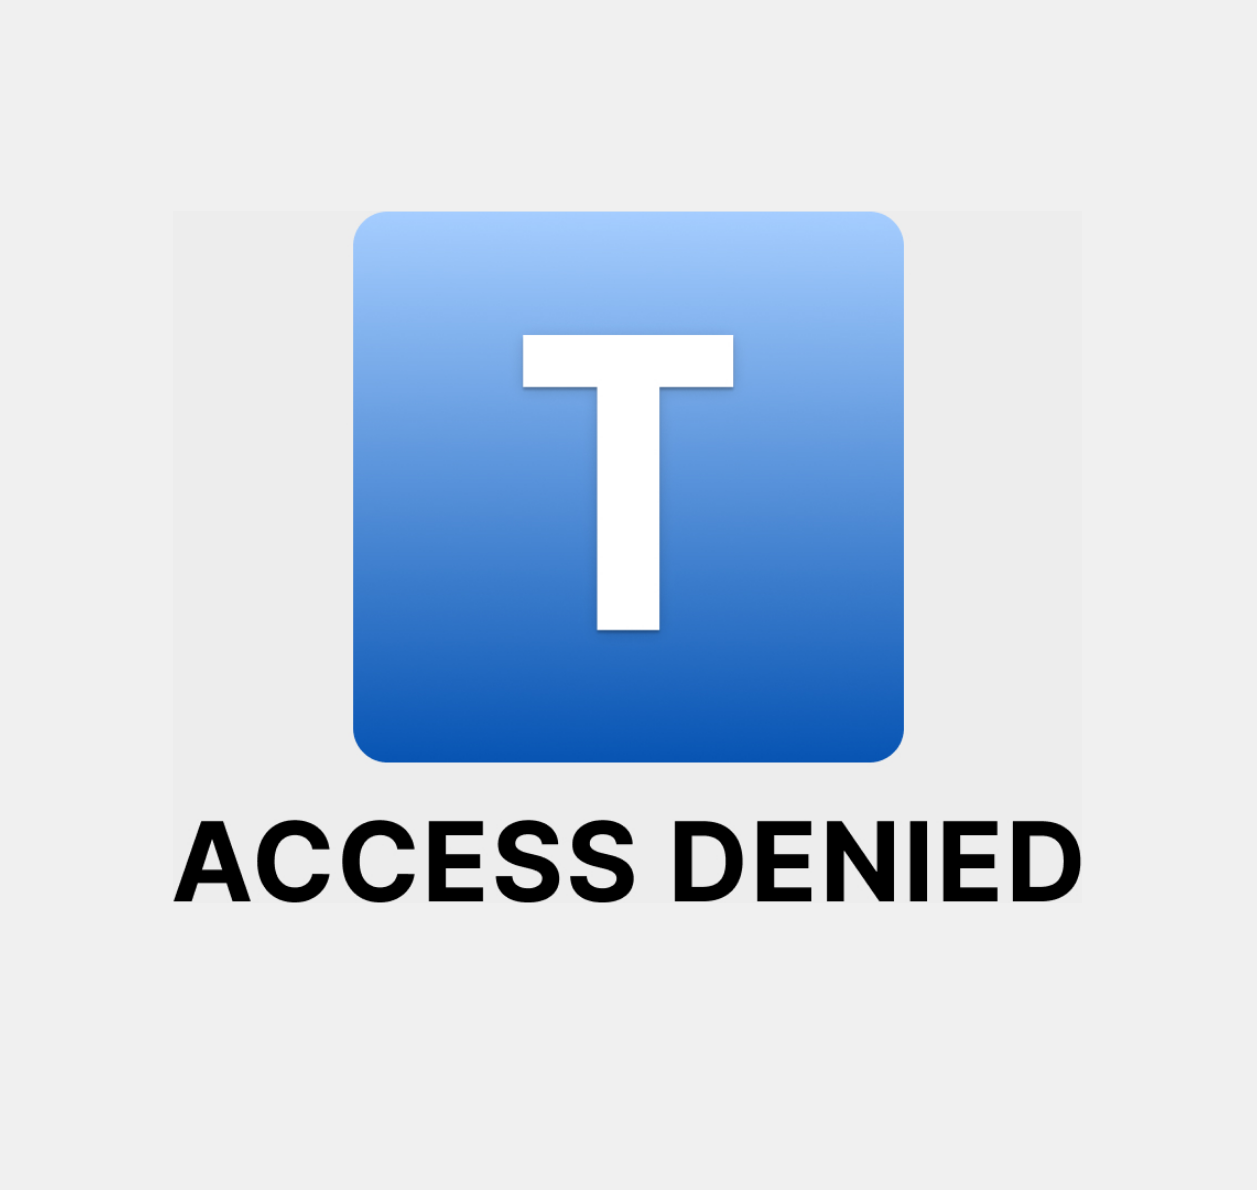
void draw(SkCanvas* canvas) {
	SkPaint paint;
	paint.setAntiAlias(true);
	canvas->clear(0xfff0f0f0);
	canvas->drawImageRect(SkImages::DeferredFromEncodedData(SkData::MakeFromFileName("img1.png")), SkRect::MakeXYWH(173, 211, 909, 692), SkSamplingOptions());
}
